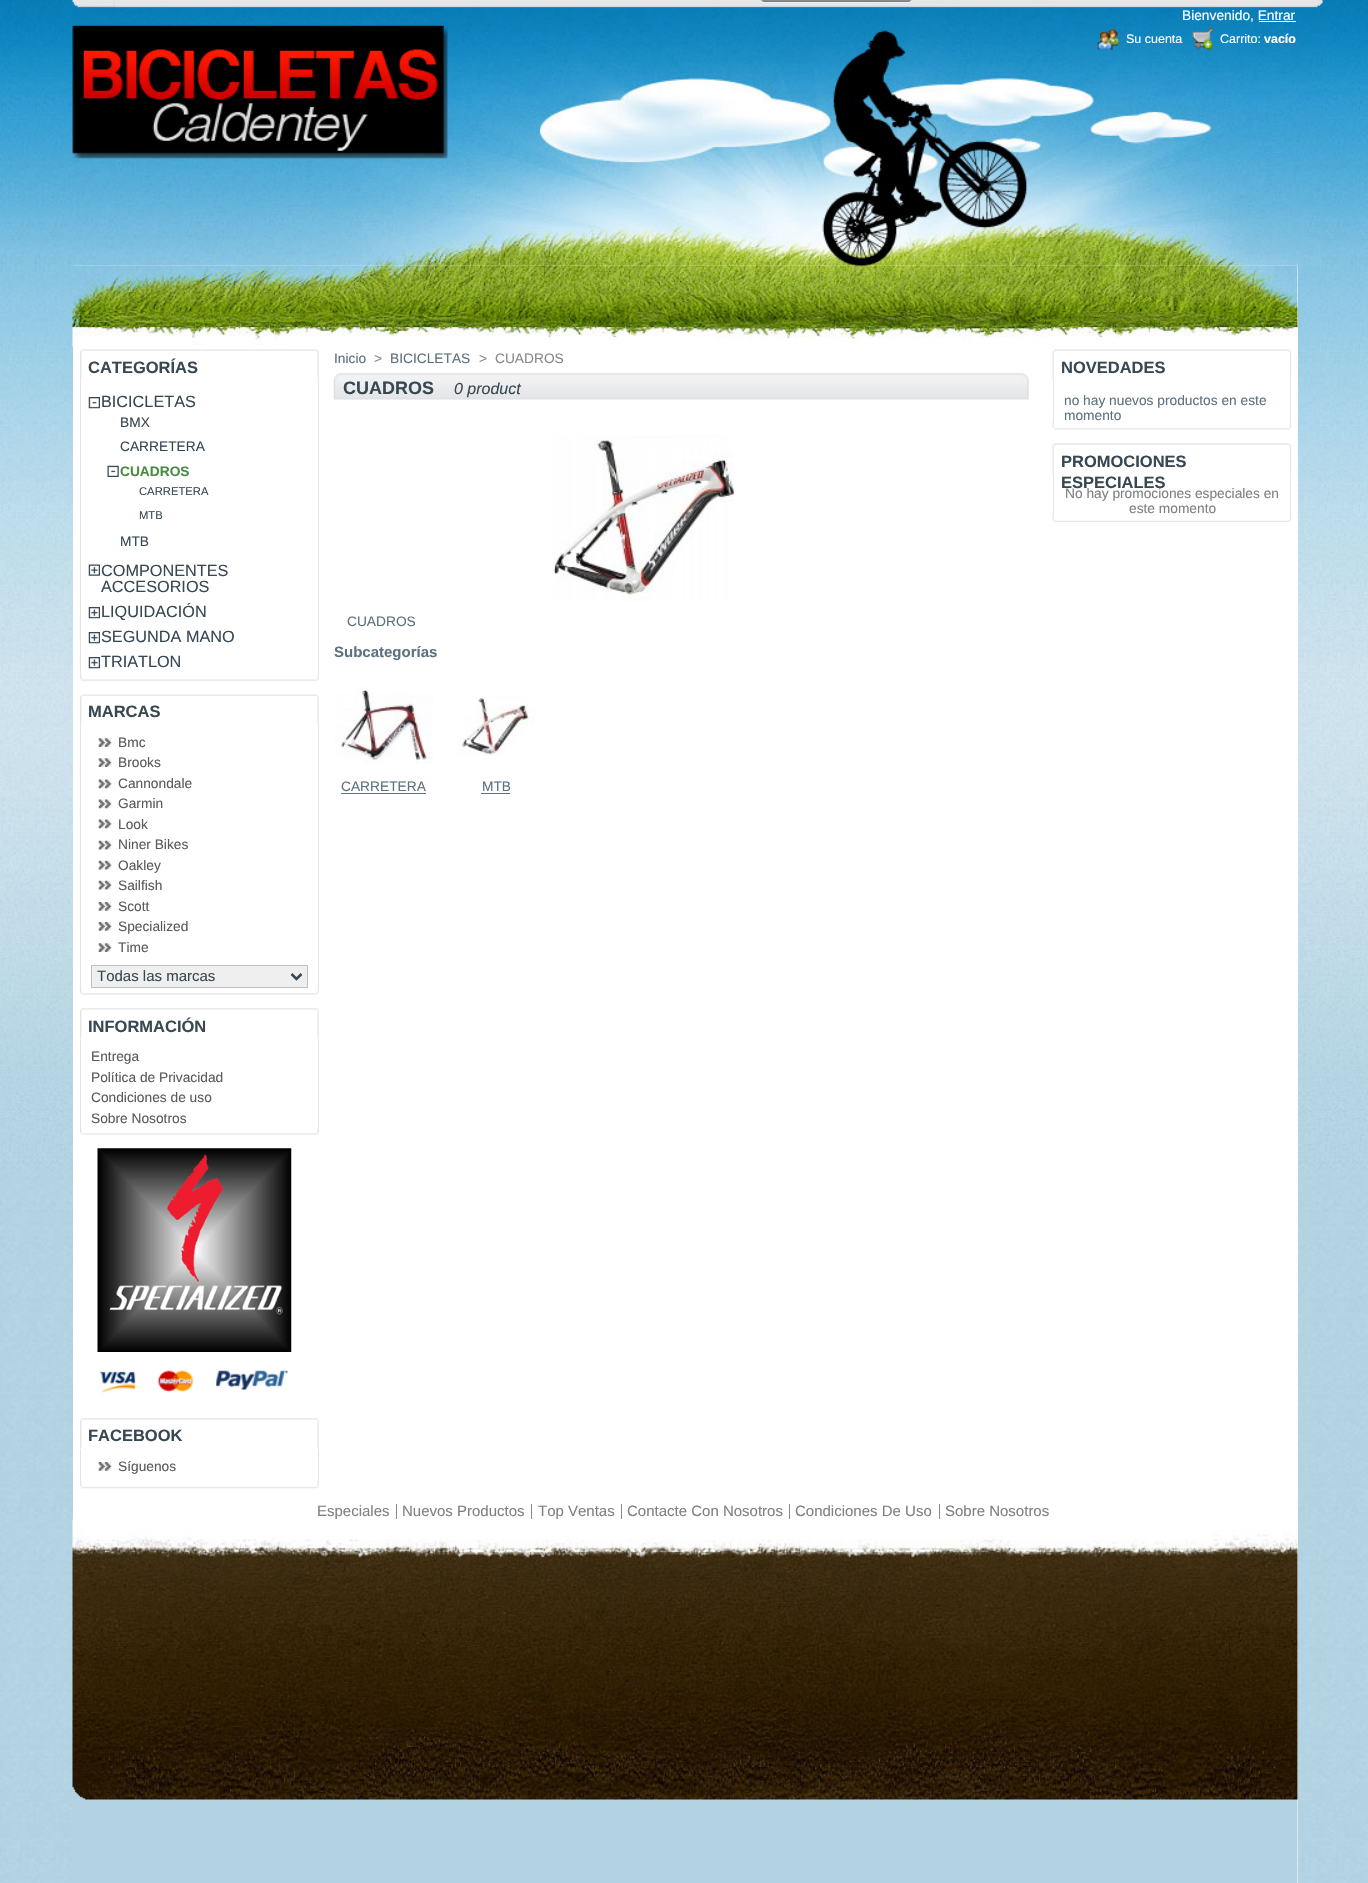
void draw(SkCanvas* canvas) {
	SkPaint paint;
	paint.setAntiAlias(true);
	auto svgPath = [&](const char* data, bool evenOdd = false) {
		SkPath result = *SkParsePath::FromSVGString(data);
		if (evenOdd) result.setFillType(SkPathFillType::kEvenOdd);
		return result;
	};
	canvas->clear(0xffffffff);
	canvas->drawImageRect(SkImages::DeferredFromEncodedData(SkData::MakeFromFileName("img1.png")), SkRect::MakeXYWH(0, 0, 1368, 1883), SkSamplingOptions());
	paint.setColor(0xffffffff);
	canvas->drawRect(SkRect::MakeXYWH(73, 265, 1225, 1618), paint);
	canvas->drawImageRect(SkImages::DeferredFromEncodedData(SkData::MakeFromFileName("img2.png")), SkRect::MakeXYWH(72, 0, 1251, 266), SkSamplingOptions());
	paint.setColor(0xffefefef);
	canvas->drawRect(SkRect::MakeXYWH(761, 0, 150, 3), paint);
	canvas->drawImageRect(SkImages::DeferredFromEncodedData(SkData::MakeFromFileName("img3.png")), SkRect::MakeXYWH(761, 0, 151, 2), SkSamplingOptions());
	canvas->drawImageRect(SkImages::DeferredFromEncodedData(SkData::MakeFromFileName("img4.png")), SkRect::MakeXYWH(72, 25, 376, 134), SkSamplingOptions());
	SkFont f1(fontMgr->matchFamilyStyle("Liberation Sans", SkFontStyle::Normal()), 13.75);
	f1.setSubpixel(true);
	paint.setColor(0xffffffff);
	canvas->drawString("Bienvenido, Entrar", 1182, 20, f1, paint);
	canvas->drawRect(SkRect::MakeXYWH(1259, 21, 37, 1), paint);
	canvas->drawImageRect(SkImages::DeferredFromEncodedData(SkData::MakeFromFileName("img5.png")), SkRect::MakeXYWH(1097, 29, 22, 21), SkSamplingOptions());
	SkFont f2(fontMgr->matchFamilyStyle("Liberation Sans", SkFontStyle::Normal()), 12.5);
	f2.setSubpixel(true);
	canvas->drawString("Su cuenta", 1126, 43, f2, paint);
	canvas->drawImageRect(SkImages::DeferredFromEncodedData(SkData::MakeFromFileName("img6.png")), SkRect::MakeXYWH(1192, 28, 21, 22), SkSamplingOptions());
	canvas->drawString("Carrito:", 1220, 43, f2, paint);
	SkFont f3(fontMgr->matchFamilyStyle("Liberation Sans", SkFontStyle::Bold()), 12.5);
	f3.setSubpixel(true);
	canvas->drawString("vacío", 1264, 43, f3, paint);
	canvas->drawImageRect(SkImages::DeferredFromEncodedData(SkData::MakeFromFileName("img7.png")), SkRect::MakeXYWH(72, 265, 1226, 82), SkSamplingOptions());
	canvas->drawImageRect(SkImages::DeferredFromEncodedData(SkData::MakeFromFileName("img8.png")), SkRect::MakeXYWH(80, 674, 239, 7), SkSamplingOptions());
	canvas->drawImageRect(SkImages::DeferredFromEncodedData(SkData::MakeFromFileName("img9.png")), SkRect::MakeXYWH(80, 349, 239, 31), SkSamplingOptions());
	SkFont f4(fontMgr->matchFamilyStyle("Liberation Sans", SkFontStyle::Bold()), 16.5);
	f4.setSubpixel(true);
	paint.setColor(0xff374853);
	canvas->drawString("CATEGORÍAS", 88, 373, f4, paint);
	paint.setColor(0xffe7e3e0);
	canvas->drawRect(SkRect::MakeXYWH(318, 380, 1, 294), paint);
	canvas->drawRect(SkRect::MakeXYWH(80, 380, 1, 294), paint);
	canvas->drawImageRect(SkImages::DeferredFromEncodedData(SkData::MakeFromFileName("img10.png")), SkRect::MakeXYWH(88, 397, 12, 12), SkSamplingOptions());
	SkFont f5(fontMgr->matchFamilyStyle("Liberation Sans", SkFontStyle::Normal()), 16.25);
	f5.setSubpixel(true);
	paint.setColor(0xff374853);
	canvas->drawString("BICICLETAS", 101, 407, f5, paint);
	canvas->drawString("BMX", 120, 427, f1, paint);
	canvas->drawString("CARRETERA", 120, 451, f1, paint);
	canvas->drawImageRect(SkImages::DeferredFromEncodedData(SkData::MakeFromFileName("img11.png")), SkRect::MakeXYWH(107, 465, 12, 12), SkSamplingOptions());
	SkFont f6(fontMgr->matchFamilyStyle("Liberation Sans", SkFontStyle::Bold()), 13.75);
	f6.setSubpixel(true);
	paint.setColor(0xff488c40);
	canvas->drawString("CUADROS", 120, 476, f6, paint);
	SkFont f7(fontMgr->matchFamilyStyle("Liberation Sans", SkFontStyle::Normal()), 11.25);
	f7.setSubpixel(true);
	paint.setColor(0xff374853);
	canvas->drawString("CARRETERA", 139, 495, f7, paint);
	canvas->drawString("MTB", 139, 519, f7, paint);
	canvas->drawString("MTB", 120, 546, f1, paint);
	canvas->drawImageRect(SkImages::DeferredFromEncodedData(SkData::MakeFromFileName("img12.png")), SkRect::MakeXYWH(88, 564, 12, 12), SkSamplingOptions());
	canvas->drawString("COMPONENTES", 101, 576, f5, paint);
	canvas->drawString("ACCESORIOS", 101, 592, f5, paint);
	canvas->drawImageRect(SkImages::DeferredFromEncodedData(SkData::MakeFromFileName("img13.png")), SkRect::MakeXYWH(88, 607, 12, 12), SkSamplingOptions());
	canvas->drawString("LIQUIDACIÓN", 101, 617, f5, paint);
	canvas->drawImageRect(SkImages::DeferredFromEncodedData(SkData::MakeFromFileName("img13.png")), SkRect::MakeXYWH(88, 632, 12, 12), SkSamplingOptions());
	canvas->drawString("SEGUNDA MANO", 101, 642, f5, paint);
	canvas->drawImageRect(SkImages::DeferredFromEncodedData(SkData::MakeFromFileName("img13.png")), SkRect::MakeXYWH(88, 657, 12, 12), SkSamplingOptions());
	canvas->drawString("TRIATLON", 101, 667, f5, paint);
	canvas->drawImageRect(SkImages::DeferredFromEncodedData(SkData::MakeFromFileName("img14.png")), SkRect::MakeXYWH(80, 988, 239, 7), SkSamplingOptions());
	canvas->drawImageRect(SkImages::DeferredFromEncodedData(SkData::MakeFromFileName("img9.png")), SkRect::MakeXYWH(80, 694, 239, 31), SkSamplingOptions());
	canvas->drawString("MARCAS", 88, 717, f4, paint);
	paint.setColor(0xffe7e3e0);
	canvas->drawRect(SkRect::MakeXYWH(318, 725, 1, 263), paint);
	canvas->drawRect(SkRect::MakeXYWH(80, 725, 1, 263), paint);
	canvas->drawImageRect(SkImages::DeferredFromEncodedData(SkData::MakeFromFileName("img15.png")), SkRect::MakeXYWH(98, 738, 14, 9), SkSamplingOptions());
	paint.setColor(0xff595a5e);
	canvas->drawString("Bmc", 118, 747, f1, paint);
	canvas->drawImageRect(SkImages::DeferredFromEncodedData(SkData::MakeFromFileName("img15.png")), SkRect::MakeXYWH(98, 758, 14, 9), SkSamplingOptions());
	canvas->drawString("Brooks", 118, 767, f1, paint);
	canvas->drawImageRect(SkImages::DeferredFromEncodedData(SkData::MakeFromFileName("img16.png")), SkRect::MakeXYWH(98, 779, 14, 10), SkSamplingOptions());
	canvas->drawString("Cannondale", 118, 788, f1, paint);
	canvas->drawImageRect(SkImages::DeferredFromEncodedData(SkData::MakeFromFileName("img16.png")), SkRect::MakeXYWH(98, 799, 14, 10), SkSamplingOptions());
	canvas->drawString("Garmin", 118, 808, f1, paint);
	canvas->drawImageRect(SkImages::DeferredFromEncodedData(SkData::MakeFromFileName("img16.png")), SkRect::MakeXYWH(98, 819, 14, 10), SkSamplingOptions());
	canvas->drawString("Look", 118, 829, f1, paint);
	canvas->drawImageRect(SkImages::DeferredFromEncodedData(SkData::MakeFromFileName("img17.png")), SkRect::MakeXYWH(98, 840, 14, 10), SkSamplingOptions());
	canvas->drawString("Niner Bikes", 118, 849, f1, paint);
	canvas->drawImageRect(SkImages::DeferredFromEncodedData(SkData::MakeFromFileName("img17.png")), SkRect::MakeXYWH(98, 860, 14, 10), SkSamplingOptions());
	canvas->drawString("Oakley", 118, 870, f1, paint);
	canvas->drawImageRect(SkImages::DeferredFromEncodedData(SkData::MakeFromFileName("img17.png")), SkRect::MakeXYWH(98, 880, 14, 10), SkSamplingOptions());
	canvas->drawString("Sailfish", 118, 890, f1, paint);
	canvas->drawImageRect(SkImages::DeferredFromEncodedData(SkData::MakeFromFileName("img18.png")), SkRect::MakeXYWH(98, 902, 14, 9), SkSamplingOptions());
	canvas->drawString("Scott", 118, 911, f1, paint);
	canvas->drawImageRect(SkImages::DeferredFromEncodedData(SkData::MakeFromFileName("img18.png")), SkRect::MakeXYWH(98, 922, 14, 9), SkSamplingOptions());
	canvas->drawString("Specialized", 118, 931, f1, paint);
	canvas->drawImageRect(SkImages::DeferredFromEncodedData(SkData::MakeFromFileName("img15.png")), SkRect::MakeXYWH(98, 943, 14, 9), SkSamplingOptions());
	canvas->drawString("Time", 118, 952, f1, paint);
	paint.setColor(0xffefefef);
	canvas->drawRect(SkRect::MakeXYWH(91.5, 965.5, 216, 22), paint);
	paint.setStroke(true);
	paint.setStrokeWidth(1);
	paint.setColor(0xffbdc2c9);
	canvas->drawRect(SkRect::MakeXYWH(91.5, 965.5, 216, 22), paint);
	paint.setStrokeWidth(2.5);
	paint.setColor(0xff374853);
	canvas->drawPath(svgPath("M291.5 974L296.5 979L301.5 974"), paint);
	SkFont f8(fontMgr->matchFamilyStyle("Liberation Sans", SkFontStyle::Normal()), 15);
	f8.setSubpixel(true);
	paint.setStroke(false);
	canvas->drawString("Todas las marcas", 97, 981, f8, paint);
	canvas->drawImageRect(SkImages::DeferredFromEncodedData(SkData::MakeFromFileName("img14.png")), SkRect::MakeXYWH(80, 1128, 239, 7), SkSamplingOptions());
	canvas->drawImageRect(SkImages::DeferredFromEncodedData(SkData::MakeFromFileName("img19.png")), SkRect::MakeXYWH(80, 1008, 239, 31), SkSamplingOptions());
	canvas->drawString("INFORMACIÓN", 88, 1032, f4, paint);
	paint.setColor(0xffe7e3e0);
	canvas->drawRect(SkRect::MakeXYWH(318, 1039, 1, 89), paint);
	canvas->drawRect(SkRect::MakeXYWH(80, 1039, 1, 89), paint);
	paint.setColor(0xff595a5e);
	canvas->drawString("Entrega", 91, 1061, f1, paint);
	canvas->drawString("Política de Privacidad", 91, 1082, f1, paint);
	canvas->drawString("Condiciones de uso", 91, 1102, f1, paint);
	canvas->drawString("Sobre Nosotros", 91, 1123, f1, paint);
	canvas->drawImageRect(SkImages::DeferredFromEncodedData(SkData::MakeFromFileName("img20.png")), SkRect::MakeXYWH(97, 1148, 195, 204), SkSamplingOptions());
	canvas->drawImageRect(SkImages::DeferredFromEncodedData(SkData::MakeFromFileName("img21.png")), SkRect::MakeXYWH(99, 1370, 38, 24), SkSamplingOptions());
	canvas->drawImageRect(SkImages::DeferredFromEncodedData(SkData::MakeFromFileName("img22.png")), SkRect::MakeXYWH(157, 1370, 37, 23), SkSamplingOptions());
	canvas->drawImageRect(SkImages::DeferredFromEncodedData(SkData::MakeFromFileName("img23.png")), SkRect::MakeXYWH(216, 1370, 72, 20), SkSamplingOptions());
	canvas->drawImageRect(SkImages::DeferredFromEncodedData(SkData::MakeFromFileName("img24.png")), SkRect::MakeXYWH(80, 1481, 239, 8), SkSamplingOptions());
	canvas->drawImageRect(SkImages::DeferredFromEncodedData(SkData::MakeFromFileName("img19.png")), SkRect::MakeXYWH(80, 1418, 239, 31), SkSamplingOptions());
	paint.setColor(0xff374853);
	canvas->drawString("FACEBOOK", 88, 1441, f4, paint);
	paint.setColor(0xffe7e3e0);
	canvas->drawRect(SkRect::MakeXYWH(318, 1449, 1, 32), paint);
	canvas->drawRect(SkRect::MakeXYWH(80, 1449, 1, 32), paint);
	canvas->drawImageRect(SkImages::DeferredFromEncodedData(SkData::MakeFromFileName("img18.png")), SkRect::MakeXYWH(98, 1462, 14, 9), SkSamplingOptions());
	paint.setColor(0xff595a5e);
	canvas->drawString("Síguenos", 118, 1471, f1, paint);
	paint.setColor(0xff5d717e);
	canvas->drawString("Inicio", 334, 363, f1, paint);
	paint.setColor(0xff888888);
	canvas->drawString(">", 374, 363, f1, paint);
	paint.setColor(0xff5d717e);
	canvas->drawString("BICICLETAS", 390, 363, f1, paint);
	paint.setColor(0xff888888);
	canvas->drawString(">", 479, 363, f1, paint);
	canvas->drawString("CUADROS", 495, 363, f1, paint);
	canvas->drawImageRect(SkImages::DeferredFromEncodedData(SkData::MakeFromFileName("img25.png")), SkRect::MakeXYWH(333, 373, 696, 27), SkSamplingOptions());
	SkFont f9(fontMgr->matchFamilyStyle("Liberation Sans", SkFontStyle::Bold()), 18);
	f9.setSubpixel(true);
	paint.setColor(0xff374853);
	canvas->drawString("CUADROS", 343, 394, f9, paint);
	SkFont f10(fontMgr->matchFamilyStyle("Liberation Sans", SkFontStyle::Italic()), 16);
	f10.setSubpixel(true);
	canvas->drawString("0 product", 454, 394, f10, paint);
	canvas->drawImageRect(SkImages::DeferredFromEncodedData(SkData::MakeFromFileName("img26.png")), SkRect::MakeXYWH(553, 435, 181, 167), SkSamplingOptions());
	paint.setColor(0xff5d717e);
	canvas->drawString("CUADROS", 347, 626, f1, paint);
	SkFont f11(fontMgr->matchFamilyStyle("Liberation Sans", SkFontStyle::Bold()), 15);
	f11.setSubpixel(true);
	canvas->drawString("Subcategorías", 334, 657, f11, paint);
	canvas->drawImageRect(SkImages::DeferredFromEncodedData(SkData::MakeFromFileName("img27.png")), SkRect::MakeXYWH(335, 687, 99, 77), SkSamplingOptions());
	canvas->drawString("CARRETERA", 341, 791, f1, paint);
	canvas->drawRect(SkRect::MakeXYWH(341, 793, 85, 1), paint);
	canvas->drawImageRect(SkImages::DeferredFromEncodedData(SkData::MakeFromFileName("img28.png")), SkRect::MakeXYWH(458, 696, 77, 60), SkSamplingOptions());
	canvas->drawString("MTB", 482, 791, f1, paint);
	canvas->drawRect(SkRect::MakeXYWH(481, 793, 29, 1), paint);
	canvas->drawImageRect(SkImages::DeferredFromEncodedData(SkData::MakeFromFileName("img29.png")), SkRect::MakeXYWH(1052, 422, 240, 8), SkSamplingOptions());
	canvas->drawImageRect(SkImages::DeferredFromEncodedData(SkData::MakeFromFileName("img30.png")), SkRect::MakeXYWH(1052, 349, 240, 31), SkSamplingOptions());
	paint.setColor(0xff374853);
	canvas->drawString("NOVEDADES", 1061, 373, f4, paint);
	paint.setColor(0xffe7e3e0);
	canvas->drawRect(SkRect::MakeXYWH(1290, 380, 1, 43), paint);
	canvas->drawRect(SkRect::MakeXYWH(1053, 380, 1, 43), paint);
	paint.setColor(0xff5d717e);
	canvas->drawString("no hay nuevos productos en este", 1064, 405, f1, paint);
	canvas->drawString("momento", 1064, 420, f1, paint);
	canvas->drawImageRect(SkImages::DeferredFromEncodedData(SkData::MakeFromFileName("img31.png")), SkRect::MakeXYWH(1052, 514, 240, 8), SkSamplingOptions());
	canvas->drawImageRect(SkImages::DeferredFromEncodedData(SkData::MakeFromFileName("img32.png")), SkRect::MakeXYWH(1052, 443, 240, 32), SkSamplingOptions());
	paint.setColor(0xff374853);
	canvas->drawString("PROMOCIONES", 1061, 467, f4, paint);
	canvas->drawString("ESPECIALES", 1061, 488, f4, paint);
	paint.setColor(0xffe7e3e0);
	canvas->drawRect(SkRect::MakeXYWH(1290, 475, 1, 40), paint);
	canvas->drawRect(SkRect::MakeXYWH(1053, 475, 1, 40), paint);
	paint.setColor(0xff808080);
	canvas->drawString("No hay promociones especiales en", 1065, 498, f1, paint);
	canvas->drawString("este momento", 1129, 513, f1, paint);
	canvas->drawImageRect(SkImages::DeferredFromEncodedData(SkData::MakeFromFileName("img33.png")), SkRect::MakeXYWH(72, 1519, 1226, 364), SkSamplingOptions());
	canvas->drawString("Especiales", 317, 1516, f8, paint);
	canvas->drawString("Nuevos Productos", 402, 1516, f8, paint);
	paint.setColor(0xff888888);
	canvas->drawRect(SkRect::MakeXYWH(396, 1504, 1, 15), paint);
	paint.setColor(0xff808080);
	canvas->drawString("Top Ventas", 538, 1516, f8, paint);
	paint.setColor(0xff888888);
	canvas->drawRect(SkRect::MakeXYWH(531, 1504, 1, 15), paint);
	paint.setColor(0xff808080);
	canvas->drawString("Contacte Con Nosotros", 627, 1516, f8, paint);
	paint.setColor(0xff888888);
	canvas->drawRect(SkRect::MakeXYWH(621, 1504, 1, 15), paint);
	paint.setColor(0xff808080);
	canvas->drawString("Condiciones De Uso", 795, 1516, f8, paint);
	paint.setColor(0xff888888);
	canvas->drawRect(SkRect::MakeXYWH(789, 1504, 1, 15), paint);
	paint.setColor(0xff808080);
	canvas->drawString("Sobre Nosotros", 945, 1516, f8, paint);
	paint.setColor(0xff888888);
	canvas->drawRect(SkRect::MakeXYWH(939, 1504, 1, 15), paint);
}
